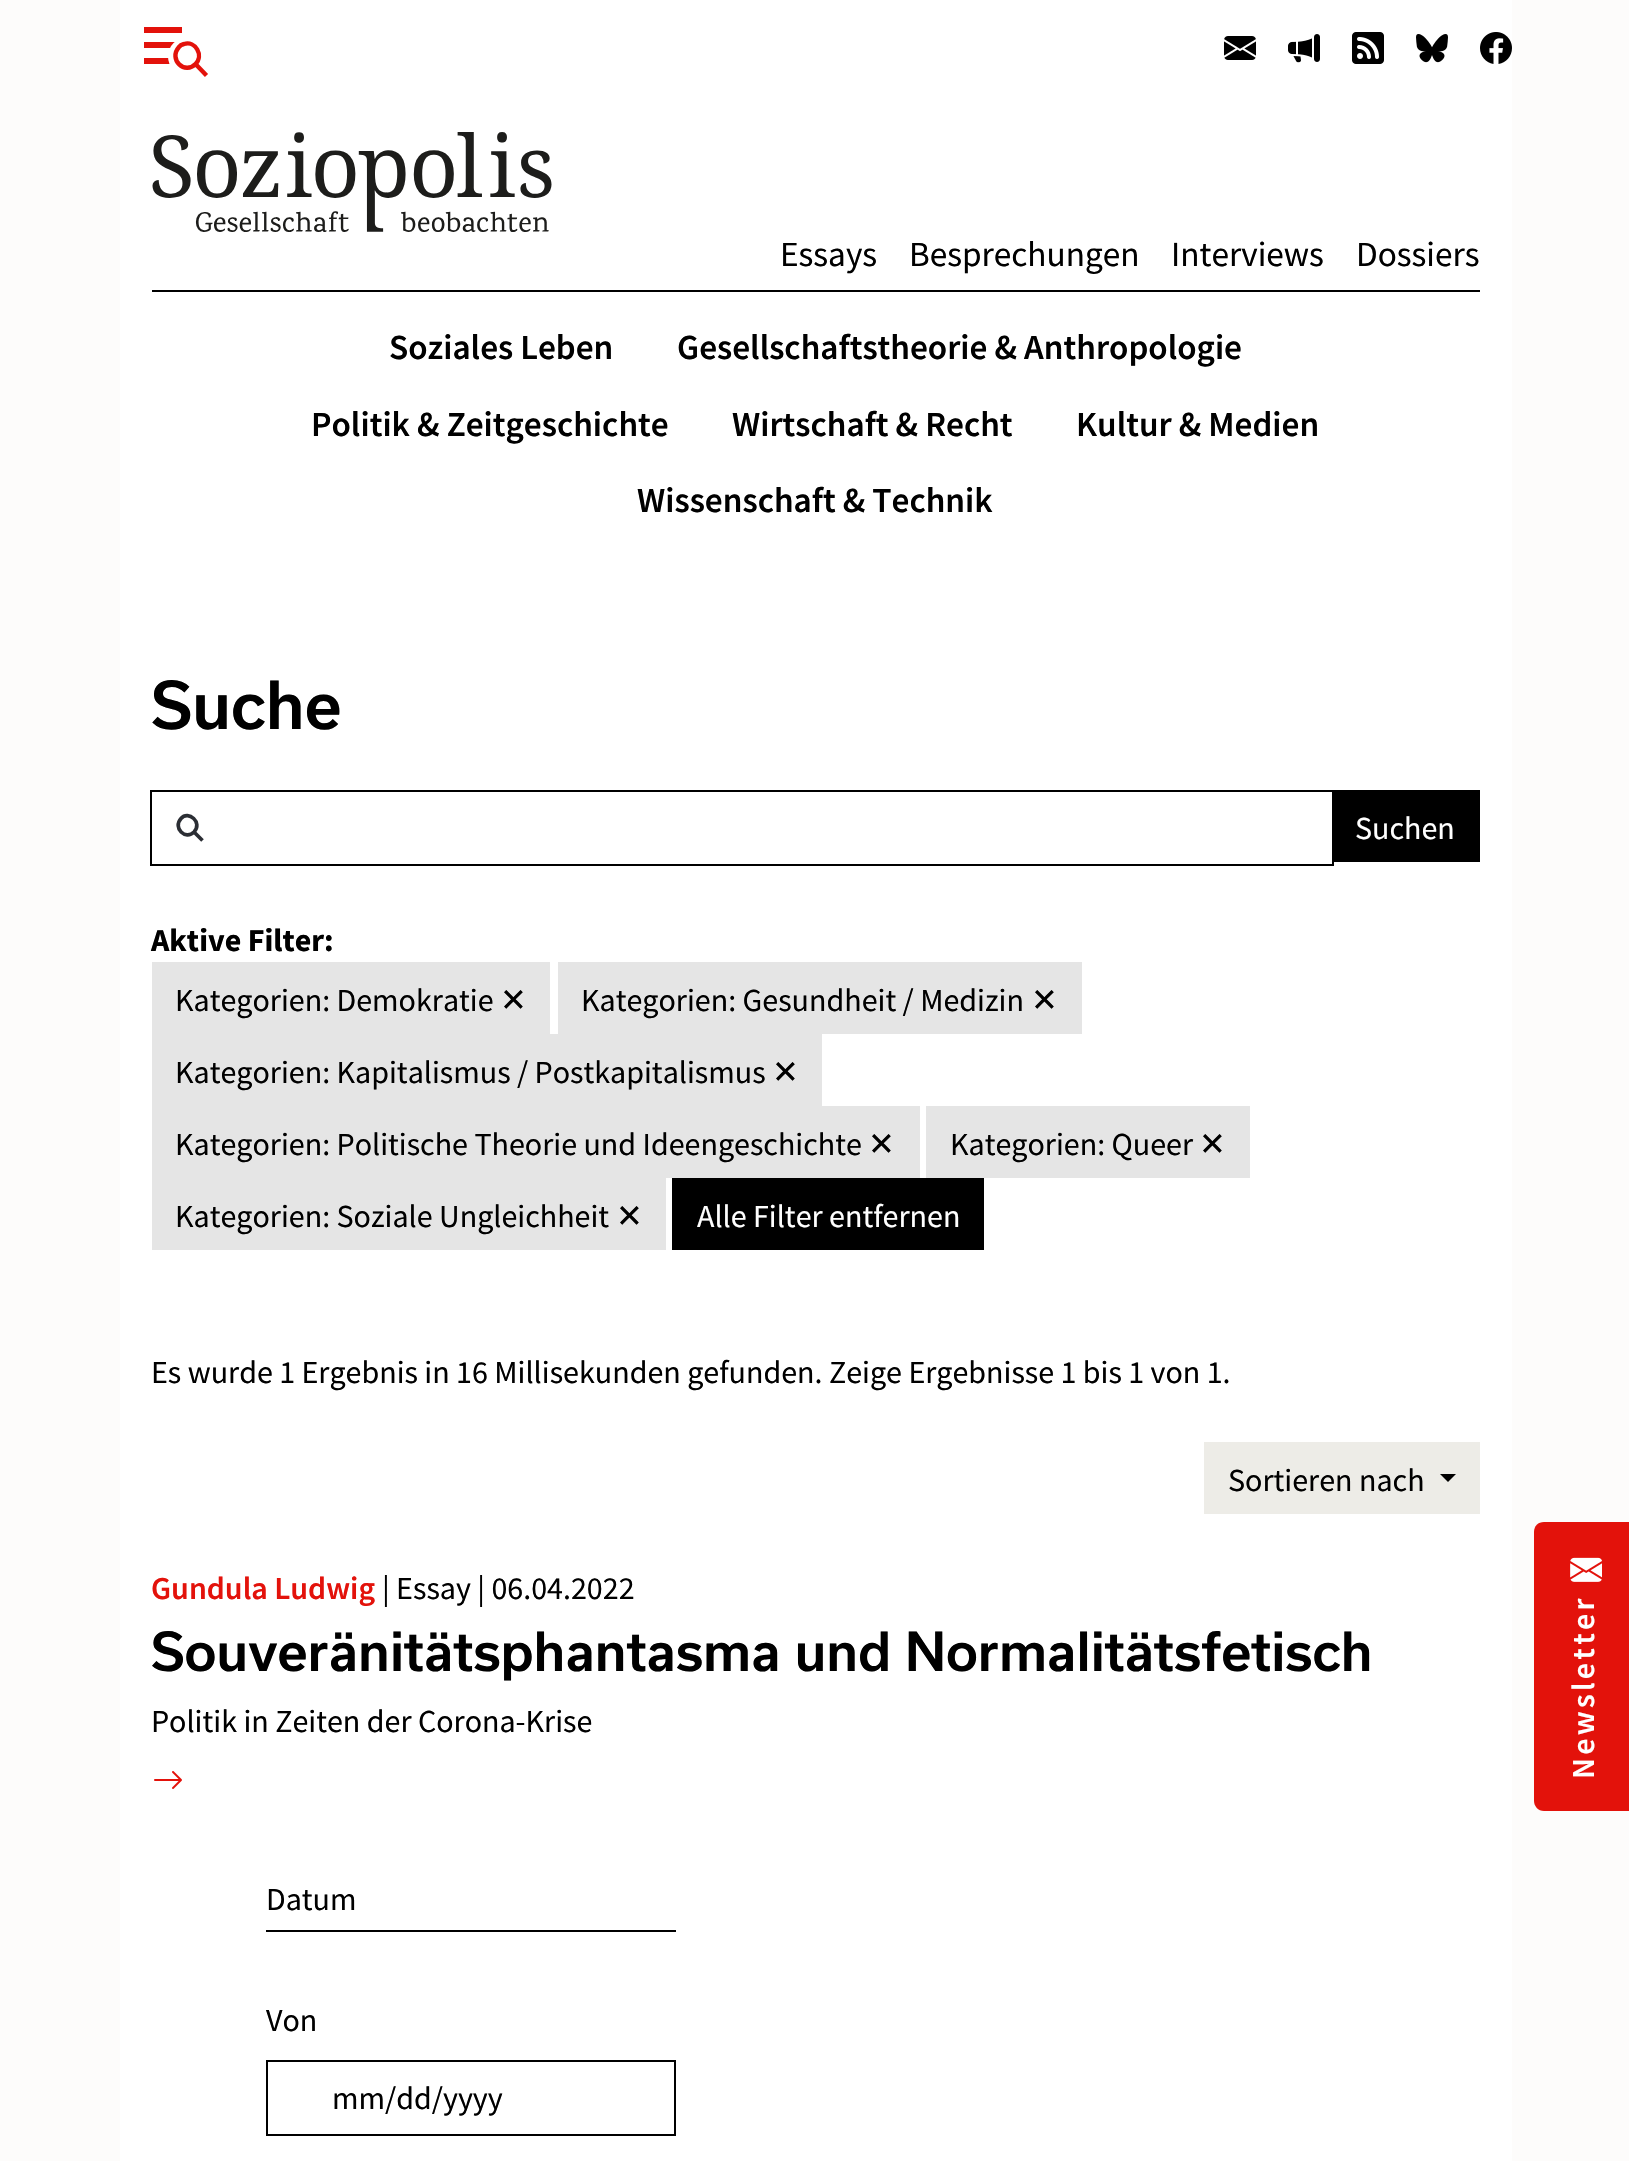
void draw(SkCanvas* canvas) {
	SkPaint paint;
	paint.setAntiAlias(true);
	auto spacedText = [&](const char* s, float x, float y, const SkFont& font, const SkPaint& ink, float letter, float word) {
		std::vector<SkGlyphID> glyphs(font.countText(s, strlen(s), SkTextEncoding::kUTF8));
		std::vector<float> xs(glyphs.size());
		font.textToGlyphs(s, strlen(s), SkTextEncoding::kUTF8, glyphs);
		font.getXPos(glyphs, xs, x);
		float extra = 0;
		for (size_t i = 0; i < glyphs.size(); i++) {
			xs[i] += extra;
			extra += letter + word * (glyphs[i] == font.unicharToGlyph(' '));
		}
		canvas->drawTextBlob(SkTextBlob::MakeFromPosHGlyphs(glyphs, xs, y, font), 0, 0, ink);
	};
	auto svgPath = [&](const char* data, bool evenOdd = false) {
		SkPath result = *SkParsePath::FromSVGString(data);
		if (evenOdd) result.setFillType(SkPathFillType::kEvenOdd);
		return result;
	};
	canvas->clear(0xfffdfcfb);
	paint.setColor(0xffffffff);
	canvas->drawRect(SkRect::MakeXYWH(120, 0, 1392, 2161), paint);
	paint.setColor(0xffe3120b);
	canvas->drawRect(SkRect::MakeXYWH(144, 27, 38, 6), paint);
	canvas->drawRect(SkRect::MakeXYWH(144, 42, 38, 6), paint);
	canvas->drawRect(SkRect::MakeXYWH(144, 58, 26, 6), paint);
	paint.setColor(0xffffffff);
	canvas->drawCircle(187, 56.5, 19, paint);
	paint.setStroke(true);
	paint.setStrokeWidth(4.4);
	paint.setColor(0xffe3120b);
	canvas->drawPath(svgPath("M195.5 64C204 55.5 195.5 40.5 184 44C182 44.5 180 45.5 179 47C168 59.5 185 75 195.5 64ZM196 64.5L206.5 75.5"), paint);
	canvas->drawImageRect(SkImages::DeferredFromEncodedData(SkData::MakeFromFileName("img1.png")), SkRect::MakeXYWH(1224, 36, 32, 24), SkSamplingOptions());
	canvas->drawImageRect(SkImages::DeferredFromEncodedData(SkData::MakeFromFileName("img2.png")), SkRect::MakeXYWH(1288, 34, 32, 29), SkSamplingOptions());
	canvas->drawImageRect(SkImages::DeferredFromEncodedData(SkData::MakeFromFileName("img3.png")), SkRect::MakeXYWH(1352, 32, 32, 32), SkSamplingOptions());
	canvas->drawImageRect(SkImages::DeferredFromEncodedData(SkData::MakeFromFileName("img4.png")), SkRect::MakeXYWH(1416, 34, 32, 29), SkSamplingOptions());
	canvas->drawImageRect(SkImages::DeferredFromEncodedData(SkData::MakeFromFileName("img5.png")), SkRect::MakeXYWH(1480, 32, 32, 32), SkSamplingOptions());
	paint.setStroke(false);
	paint.setColor(0xff000000);
	canvas->drawRect(SkRect::MakeXYWH(152, 290, 1328, 2), paint);
	canvas->drawImageRect(SkImages::DeferredFromEncodedData(SkData::MakeFromFileName("img6.png")), SkRect::MakeXYWH(152, 132, 400, 100), SkSamplingOptions());
	SkFont f1(fontMgr->matchFamilyStyle("Source Sans Pro", SkFontStyle::Normal()), 35.25);
	f1.setSubpixel(true);
	canvas->drawString("Essays", 780, 266, f1, paint);
	canvas->drawString("Besprechungen", 909, 266, f1, paint);
	canvas->drawString("Interviews", 1171, 266, f1, paint);
	canvas->drawString("Dossiers", 1356, 266, f1, paint);
	SkFont f2(fontMgr->matchFamilyStyle("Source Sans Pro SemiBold", SkFontStyle(600, SkFontStyle::kNormal_Width, SkFontStyle::kUpright_Slant)), 35.25);
	f2.setSubpixel(true);
	canvas->drawString("Soziales Leben", 389, 359, f2, paint);
	canvas->drawString("Gesellschaftstheorie & Anthropologie", 677, 359, f2, paint);
	canvas->drawString("Politik & Zeitgeschichte", 311, 436, f2, paint);
	canvas->drawString("Wirtschaft & Recht", 732, 436, f2, paint);
	canvas->drawString("Kultur & Medien", 1076, 436, f2, paint);
	canvas->drawString("Wissenschaft & Technik", 637, 512, f2, paint);
	SkFont f3(fontMgr->matchFamilyStyle("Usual", SkFontStyle(500, SkFontStyle::kNormal_Width, SkFontStyle::kUpright_Slant)), 63);
	f3.setSubpixel(true);
	canvas->drawString("Suche", 151, 729, f3, paint);
	paint.setStroke(true);
	paint.setStrokeWidth(2);
	canvas->drawRect(SkRect::MakeXYWH(151, 791, 1182, 74), paint);
	paint.setStrokeWidth(3.7);
	paint.setColor(0xff2b2e34);
	canvas->drawPath(svgPath("M194 832C203 822.5 188.5 810 181 818.5C172.5 828 185.5 840.5 194 832ZM194.5 832.5L202.5 840.5"), paint);
	paint.setStroke(false);
	paint.setColor(0xff000000);
	canvas->drawRect(SkRect::MakeXYWH(1334, 790, 146, 72), paint);
	SkFont f4(fontMgr->matchFamilyStyle("Source Sans Pro", SkFontStyle::Normal()), 32);
	f4.setSubpixel(true);
	paint.setColor(0xffffffff);
	canvas->drawString("Suchen", 1355, 839, f4, paint);
	SkFont f5(fontMgr->matchFamilyStyle("Source Sans Pro", SkFontStyle::Bold()), 32);
	f5.setSubpixel(true);
	paint.setColor(0xff000000);
	canvas->drawString("Aktive Filter:", 151, 951, f5, paint);
	paint.setColor(0xffe5e5e5);
	canvas->drawRect(SkRect::MakeXYWH(152, 962, 398, 72), paint);
	paint.setColor(0xff000000);
	canvas->drawString("Kategorien: Demokratie", 175, 1011, f4, paint);
	SkFont f6(fontMgr->matchFamilyStyle("DejaVu Sans", SkFontStyle::Normal()), 32);
	f6.setSubpixel(true);
	canvas->drawString("✕", 500, 1011, f6, paint);
	paint.setColor(0xffe5e5e5);
	canvas->drawRect(SkRect::MakeXYWH(558, 962, 524, 72), paint);
	paint.setColor(0xff000000);
	canvas->drawString("Kategorien: Gesundheit / Medizin", 581, 1011, f4, paint);
	canvas->drawString("✕", 1031, 1011, f6, paint);
	paint.setColor(0xffe5e5e5);
	canvas->drawRect(SkRect::MakeXYWH(152, 1034, 670, 72), paint);
	paint.setColor(0xff000000);
	canvas->drawString("Kategorien: Kapitalismus / Postkapitalismus", 175, 1083, f4, paint);
	canvas->drawString("✕", 772, 1083, f6, paint);
	paint.setColor(0xffe5e5e5);
	canvas->drawRect(SkRect::MakeXYWH(152, 1106, 768, 72), paint);
	paint.setColor(0xff000000);
	canvas->drawString("Kategorien: Politische Theorie und Ideengeschichte", 175, 1155, f4, paint);
	canvas->drawString("✕", 868, 1155, f6, paint);
	paint.setColor(0xffe5e5e5);
	canvas->drawRect(SkRect::MakeXYWH(926, 1106, 324, 72), paint);
	paint.setColor(0xff000000);
	canvas->drawString("Kategorien: Queer", 950, 1155, f4, paint);
	canvas->drawString("✕", 1199, 1155, f6, paint);
	paint.setColor(0xffe5e5e5);
	canvas->drawRect(SkRect::MakeXYWH(152, 1178, 514, 72), paint);
	paint.setColor(0xff000000);
	canvas->drawString("Kategorien: Soziale Ungleichheit", 175, 1227, f4, paint);
	canvas->drawString("✕", 616, 1227, f6, paint);
	canvas->drawRect(SkRect::MakeXYWH(672, 1178, 312, 72), paint);
	paint.setColor(0xffffffff);
	canvas->drawString("Alle Filter entfernen", 697, 1227, f4, paint);
	paint.setColor(0xff000000);
	canvas->drawString("Es wurde 1 Ergebnis in 16 Millisekunden gefunden. Zeige Ergebnisse 1 bis 1 von 1.", 151, 1383, f4, paint);
	paint.setColor(0xffedece7);
	canvas->drawRect(SkRect::MakeXYWH(1204, 1442, 276, 72), paint);
	paint.setColor(0xff000000);
	canvas->drawString("Sortieren nach", 1228, 1491, f4, paint);
	canvas->drawPath(svgPath("M1440 1474H1456L1448 1482Z"), paint);
	SkFont f7(fontMgr->matchFamilyStyle("Source Sans Pro SemiBold", SkFontStyle(600, SkFontStyle::kNormal_Width, SkFontStyle::kUpright_Slant)), 32);
	f7.setSubpixel(true);
	paint.setColor(0xffe3120b);
	canvas->drawString("Gundula Ludwig", 151, 1599, f7, paint);
	paint.setColor(0xff000000);
	canvas->drawString("| Essay | 06.04.2022", 382, 1599, f4, paint);
	SkFont f8(fontMgr->matchFamilyStyle("Usual", SkFontStyle(500, SkFontStyle::kNormal_Width, SkFontStyle::kUpright_Slant)), 51.4);
	f8.setSubpixel(true);
	canvas->drawString("Souveränitätsphantasma und Normalitätsfetisch", 151, 1671, f8, paint);
	canvas->drawString("Politik in Zeiten der Corona-Krise", 151, 1732, f4, paint);
	canvas->drawImageRect(SkImages::DeferredFromEncodedData(SkData::MakeFromFileName("img7.png")), SkRect::MakeXYWH(154, 1771, 28, 18), SkSamplingOptions());
	canvas->drawRect(SkRect::MakeXYWH(266, 1930, 410, 2), paint);
	canvas->drawString("Datum", 266, 1910, f4, paint);
	canvas->drawString("Von", 266, 2031, f4, paint);
	paint.setStroke(true);
	paint.setStrokeWidth(2);
	canvas->drawRect(SkRect::MakeXYWH(267, 2061, 408, 74), paint);
	paint.setStroke(false);
	canvas->drawString("mm/dd/yyyy", 332, 2109, f4, paint);
	paint.setColor(0xffe3120b);
	canvas->drawPath(svgPath("M1534 1801V1532C1534 1526 1538 1522 1544 1522H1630V1811H1544C1538 1811 1534 1806 1534 1801Z"), paint);
	canvas->drawImageRect(SkImages::DeferredFromEncodedData(SkData::MakeFromFileName("img8.png")), SkRect::MakeXYWH(1570, 1557, 32, 25), SkSamplingOptions());
	paint.setColor(0xffffffff);
	canvas->save();
	canvas->rotate(-90, 1594, 1779);
	spacedText("Newsletter", 1594, 1779, f7, paint, 3.25, 0);
	canvas->restore();
}
